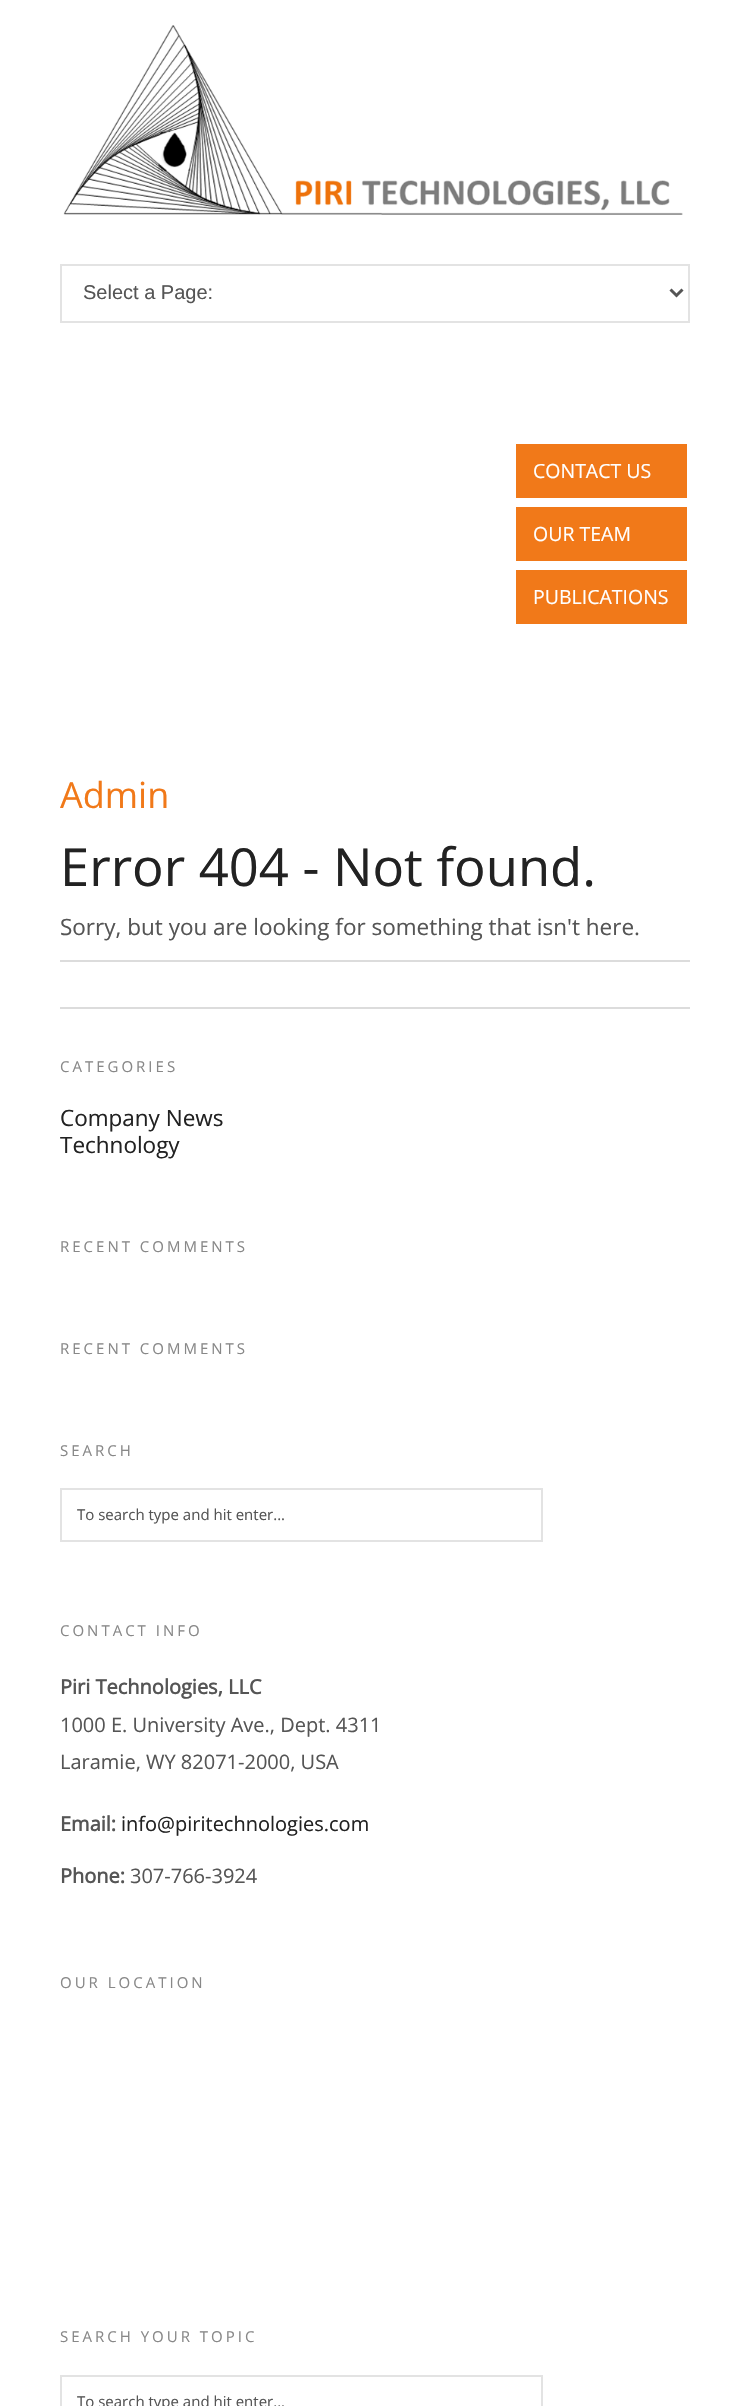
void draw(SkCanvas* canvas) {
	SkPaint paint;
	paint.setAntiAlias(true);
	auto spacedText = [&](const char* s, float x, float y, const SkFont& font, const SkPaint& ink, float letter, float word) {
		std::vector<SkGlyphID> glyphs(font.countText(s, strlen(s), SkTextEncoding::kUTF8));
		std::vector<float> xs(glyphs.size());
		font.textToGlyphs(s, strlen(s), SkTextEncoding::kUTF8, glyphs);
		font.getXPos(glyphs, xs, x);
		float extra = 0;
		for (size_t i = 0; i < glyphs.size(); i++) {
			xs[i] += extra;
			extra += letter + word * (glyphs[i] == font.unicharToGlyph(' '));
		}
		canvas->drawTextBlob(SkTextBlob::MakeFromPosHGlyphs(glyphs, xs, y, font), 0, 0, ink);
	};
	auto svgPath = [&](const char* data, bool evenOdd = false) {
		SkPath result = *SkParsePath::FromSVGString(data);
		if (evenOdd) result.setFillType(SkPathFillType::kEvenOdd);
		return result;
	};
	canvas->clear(0xffffffff);
	canvas->drawImageRect(SkImages::DeferredFromEncodedData(SkData::MakeFromFileName("img1.png")), SkRect::MakeXYWH(63, 25, 620, 190), SkSamplingOptions());
	paint.setStroke(true);
	paint.setStrokeWidth(2);
	paint.setColor(0xffe3e3e3);
	canvas->drawRect(SkRect::MakeXYWH(61, 265, 628, 57), paint);
	paint.setStrokeWidth(3);
	paint.setColor(0xff555555);
	canvas->drawPath(svgPath("M670.5 289.5L676.5 295.5L682.5 289.5"), paint);
	SkFont f1(fontMgr->matchFamilyStyle("Liberation Sans", SkFontStyle::Normal()), 20);
	f1.setSubpixel(true);
	paint.setStroke(false);
	canvas->drawString("Select a Page:", 83, 299, f1, paint);
	paint.setColor(0xfff17919);
	canvas->drawRect(SkRect::MakeXYWH(516, 444, 171, 54), paint);
	SkFont f2(fontMgr->matchFamilyStyle("Open Sans", SkFontStyle::Normal()), 19.5);
	f2.setSubpixel(true);
	paint.setColor(0xffffffff);
	canvas->drawString("CONTACT US", 533, 478, f2, paint);
	paint.setColor(0xfff17919);
	canvas->drawRect(SkRect::MakeXYWH(516, 507, 171, 54), paint);
	paint.setColor(0xffffffff);
	canvas->drawString("OUR TEAM", 533, 541, f2, paint);
	paint.setColor(0xfff17919);
	canvas->drawRect(SkRect::MakeXYWH(516, 570, 171, 54), paint);
	paint.setColor(0xffffffff);
	canvas->drawString("PUBLICATIONS", 533, 604, f2, paint);
	SkFont f3(fontMgr->matchFamilyStyle("Open Sans", SkFontStyle::Normal()), 36);
	f3.setSubpixel(true);
	paint.setColor(0xfff17919);
	canvas->drawString("Admin", 60, 808, f3, paint);
	SkFont f4(fontMgr->matchFamilyStyle("Open Sans", SkFontStyle::Normal()), 52.5);
	f4.setSubpixel(true);
	paint.setColor(0xff222222);
	canvas->drawString("Error 404 - Not found.", 60, 886, f4, paint);
	SkFont f5(fontMgr->matchFamilyStyle("Open Sans", SkFontStyle::Normal()), 22.5);
	f5.setSubpixel(true);
	paint.setColor(0xff555555);
	canvas->drawString("Sorry, but you are looking for something that isn't here.", 60, 935, f5, paint);
	paint.setColor(0xffdcdcdc);
	canvas->drawRect(SkRect::MakeXYWH(60, 960, 630, 2), paint);
	canvas->drawRect(SkRect::MakeXYWH(60, 1007, 630, 2), paint);
	SkFont f6(fontMgr->matchFamilyStyle("Open Sans", SkFontStyle::Normal()), 15);
	f6.setSubpixel(true);
	paint.setColor(0xff888888);
	spacedText("CATEGORIES", 60, 1072, f6, paint, 3, 0);
	paint.setColor(0xff222222);
	canvas->drawString("Company News", 60, 1126, f5, paint);
	canvas->drawString("Technology", 60, 1153, f5, paint);
	paint.setColor(0xff888888);
	spacedText("RECENT COMMENTS", 60, 1252, f6, paint, 3, 0);
	spacedText("RECENT COMMENTS", 60, 1354, f6, paint, 3, 0);
	spacedText("SEARCH", 60, 1456, f6, paint, 3, 0);
	paint.setStroke(true);
	paint.setStrokeWidth(2);
	paint.setColor(0xffe3e3e3);
	canvas->drawRect(SkRect::MakeXYWH(61, 1489, 481, 52), paint);
	paint.setStroke(false);
	paint.setColor(0xff555555);
	canvas->drawString("To search type and hit enter...", 77, 1520, f6, paint);
	paint.setColor(0xff888888);
	spacedText("CONTACT INFO", 60, 1636, f6, paint, 3, 0);
	SkFont f7(fontMgr->matchFamilyStyle("Open Sans", SkFontStyle::Bold()), 20);
	f7.setSubpixel(true);
	paint.setColor(0xff555555);
	canvas->drawString("Piri Technologies, LLC", 60, 1694, f7, paint);
	SkFont f8(fontMgr->matchFamilyStyle("Open Sans", SkFontStyle::Normal()), 20);
	f8.setSubpixel(true);
	canvas->drawString("1000 E. University Ave., Dept. 4311", 60, 1732, f8, paint);
	canvas->drawString("Laramie, WY 82071-2000, USA", 60, 1769, f8, paint);
	canvas->drawString("Email:", 60, 1831, f7, paint);
	paint.setColor(0xff222222);
	canvas->drawString("info@piritechnologies.com", 121, 1831, f8, paint);
	paint.setColor(0xff555555);
	canvas->drawString("Phone:", 60, 1883, f7, paint);
	canvas->drawString("307-766-3924", 130, 1883, f8, paint);
	paint.setColor(0xff888888);
	spacedText("OUR LOCATION", 60, 1988, f6, paint, 3, 0);
	spacedText("SEARCH YOUR TOPIC", 60, 2342, f6, paint, 3, 0);
	paint.setStroke(true);
	paint.setColor(0xffe3e3e3);
	canvas->drawRect(SkRect::MakeXYWH(61, 2376, 481, 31), paint);
	paint.setStroke(false);
	paint.setColor(0xff555555);
	canvas->drawString("To search type and hit enter...", 77, 2407, f6, paint);
}
